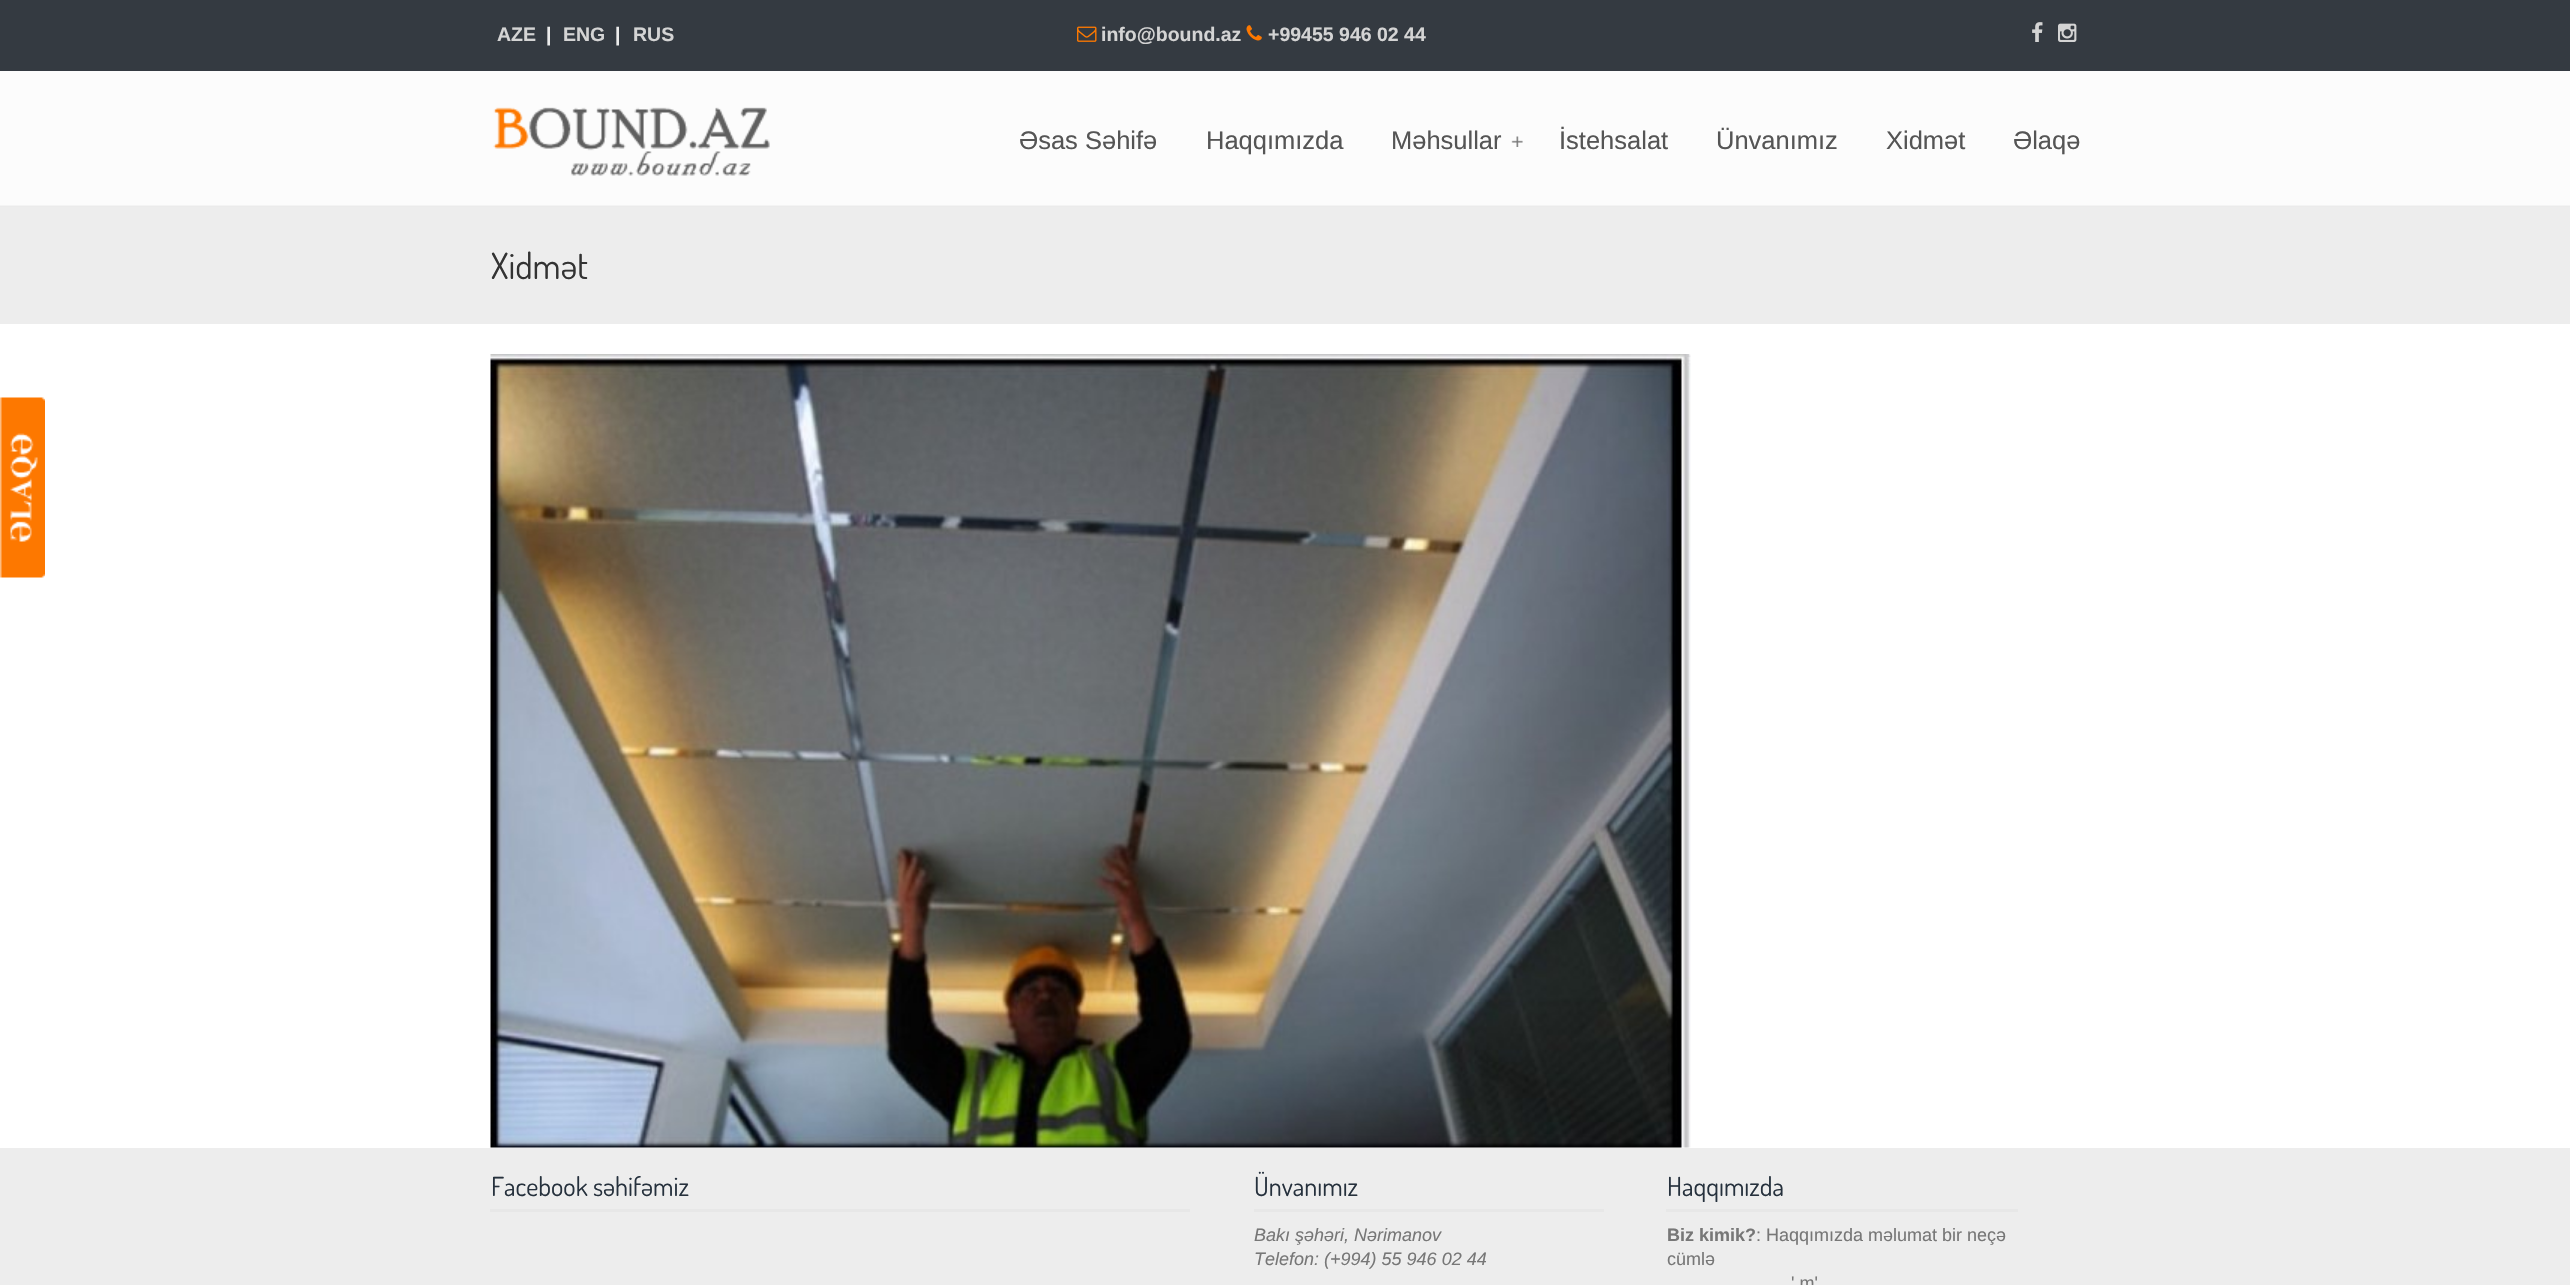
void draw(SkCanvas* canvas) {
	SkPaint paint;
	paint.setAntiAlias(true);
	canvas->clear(0xfffcfcfc);
	paint.setColor(0xff343a41);
	canvas->drawRect(SkRect::MakeXYWH(0, 0, 2570, 71), paint);
	SkFont f1(fontMgr->matchFamilyStyle("Liberation Sans", SkFontStyle::Bold()), 19.5);
	f1.setSubpixel(true);
	paint.setColor(0xffd4d4d4);
	canvas->drawString("AZE", 497, 41, f1, paint);
	paint.setColor(0xffebebeb);
	canvas->drawString("|", 546, 41, f1, paint);
	paint.setColor(0xffd4d4d4);
	canvas->drawString("ENG", 563, 41, f1, paint);
	paint.setColor(0xffebebeb);
	canvas->drawString("|", 615, 41, f1, paint);
	paint.setColor(0xffd4d4d4);
	canvas->drawString("RUS", 633, 41, f1, paint);
	canvas->drawImageRect(SkImages::DeferredFromEncodedData(SkData::MakeFromFileName("img1.png")), SkRect::MakeXYWH(1077, 26, 20, 16), SkSamplingOptions());
	canvas->drawString("info@bound.az", 1101, 41, f1, paint);
	canvas->drawImageRect(SkImages::DeferredFromEncodedData(SkData::MakeFromFileName("img2.png")), SkRect::MakeXYWH(1246, 25, 16, 16), SkSamplingOptions());
	canvas->drawString("+99455 946 02 44", 1268, 41, f1, paint);
	canvas->drawImageRect(SkImages::DeferredFromEncodedData(SkData::MakeFromFileName("img3.png")), SkRect::MakeXYWH(2032, 22, 11, 20), SkSamplingOptions());
	canvas->drawImageRect(SkImages::DeferredFromEncodedData(SkData::MakeFromFileName("img4.png")), SkRect::MakeXYWH(2058, 23, 19, 19), SkSamplingOptions());
	canvas->drawImageRect(SkImages::DeferredFromEncodedData(SkData::MakeFromFileName("img5.png")), SkRect::MakeXYWH(493, 107, 277, 69), SkSamplingOptions());
	canvas->drawImageRect(SkImages::DeferredFromEncodedData(SkData::MakeFromFileName("img6.png")), SkRect::MakeXYWH(0, 205, 2570, 2), SkSamplingOptions());
	SkFont f2(fontMgr->matchFamilyStyle("Liberation Sans", SkFontStyle::Normal()), 25.5);
	f2.setSubpixel(true);
	paint.setColor(0xff555555);
	canvas->drawString("Əsas Səhifə", 1019, 149, f2, paint);
	canvas->drawString("Haqqımızda", 1206, 149, f2, paint);
	canvas->drawString("Məhsullar", 1391, 149, f2, paint);
	canvas->drawImageRect(SkImages::DeferredFromEncodedData(SkData::MakeFromFileName("img7.png")), SkRect::MakeXYWH(1511, 136, 12, 11), SkSamplingOptions());
	canvas->drawString("İstehsalat", 1559, 149, f2, paint);
	canvas->drawString("Ünvanımız", 1716, 149, f2, paint);
	canvas->drawString("Xidmət", 1886, 149, f2, paint);
	canvas->drawString("Əlaqə", 2013, 149, f2, paint);
	paint.setColor(0xffffffff);
	canvas->drawRect(SkRect::MakeXYWH(0, 324, 2570, 824), paint);
	canvas->drawImageRect(SkImages::DeferredFromEncodedData(SkData::MakeFromFileName("img8.png")), SkRect::MakeXYWH(0, 397, 45, 181), SkSamplingOptions());
	paint.setColor(0xffededed);
	canvas->drawRect(SkRect::MakeXYWH(0, 207, 2570, 117), paint);
	SkFont f3(fontMgr->matchFamilyStyle("Dosis", SkFontStyle::Normal()), 36);
	f3.setSubpixel(true);
	paint.setColor(0xff333333);
	canvas->drawString("Xidmət", 491, 279, f3, paint);
	canvas->drawImageRect(SkImages::DeferredFromEncodedData(SkData::MakeFromFileName("img9.png")), SkRect::MakeXYWH(490, 354, 1201, 794), SkSamplingOptions());
	paint.setColor(0xffededed);
	canvas->drawRect(SkRect::MakeXYWH(0, 1148, 2570, 137), paint);
	paint.setColor(0xffe7e7e7);
	canvas->drawRect(SkRect::MakeXYWH(490, 1209, 700, 3), paint);
	SkFont f4(fontMgr->matchFamilyStyle("Dosis", SkFontStyle::Normal()), 26.25);
	f4.setSubpixel(true);
	paint.setColor(0xff26313d);
	canvas->drawString("Facebook səhifəmiz", 491, 1196, f4, paint);
	paint.setColor(0xffe7e7e7);
	canvas->drawRect(SkRect::MakeXYWH(1254, 1209, 350, 3), paint);
	paint.setColor(0xff26313d);
	canvas->drawString("Ünvanımız", 1254, 1196, f4, paint);
	SkFont f5(fontMgr->matchFamilyStyle("Liberation Sans", SkFontStyle::Italic()), 18);
	f5.setSubpixel(true);
	paint.setColor(0xff777777);
	canvas->drawString("Bakı şəhəri, Nərimanov", 1254, 1241, f5, paint);
	canvas->drawString("Telefon: (+994) 55 946 02 44", 1254, 1265, f5, paint);
	paint.setColor(0xffe7e7e7);
	canvas->drawRect(SkRect::MakeXYWH(1666, 1209, 352, 3), paint);
	paint.setColor(0xff26313d);
	canvas->drawString("Haqqımızda", 1667, 1196, f4, paint);
	SkFont f6(fontMgr->matchFamilyStyle("Liberation Sans", SkFontStyle::Bold()), 18);
	f6.setSubpixel(true);
	paint.setColor(0xff777777);
	canvas->drawString("Biz kimik?", 1667, 1241, f6, paint);
	SkFont f7(fontMgr->matchFamilyStyle("Liberation Sans", SkFontStyle::Normal()), 18);
	f7.setSubpixel(true);
	canvas->drawString(": Haqqımızda məlumat bir neçə", 1756, 1241, f7, paint);
	canvas->drawString("cümlə", 1667, 1265, f7, paint);
	canvas->drawString("' m'", 1791, 1289, f7, paint);
}
